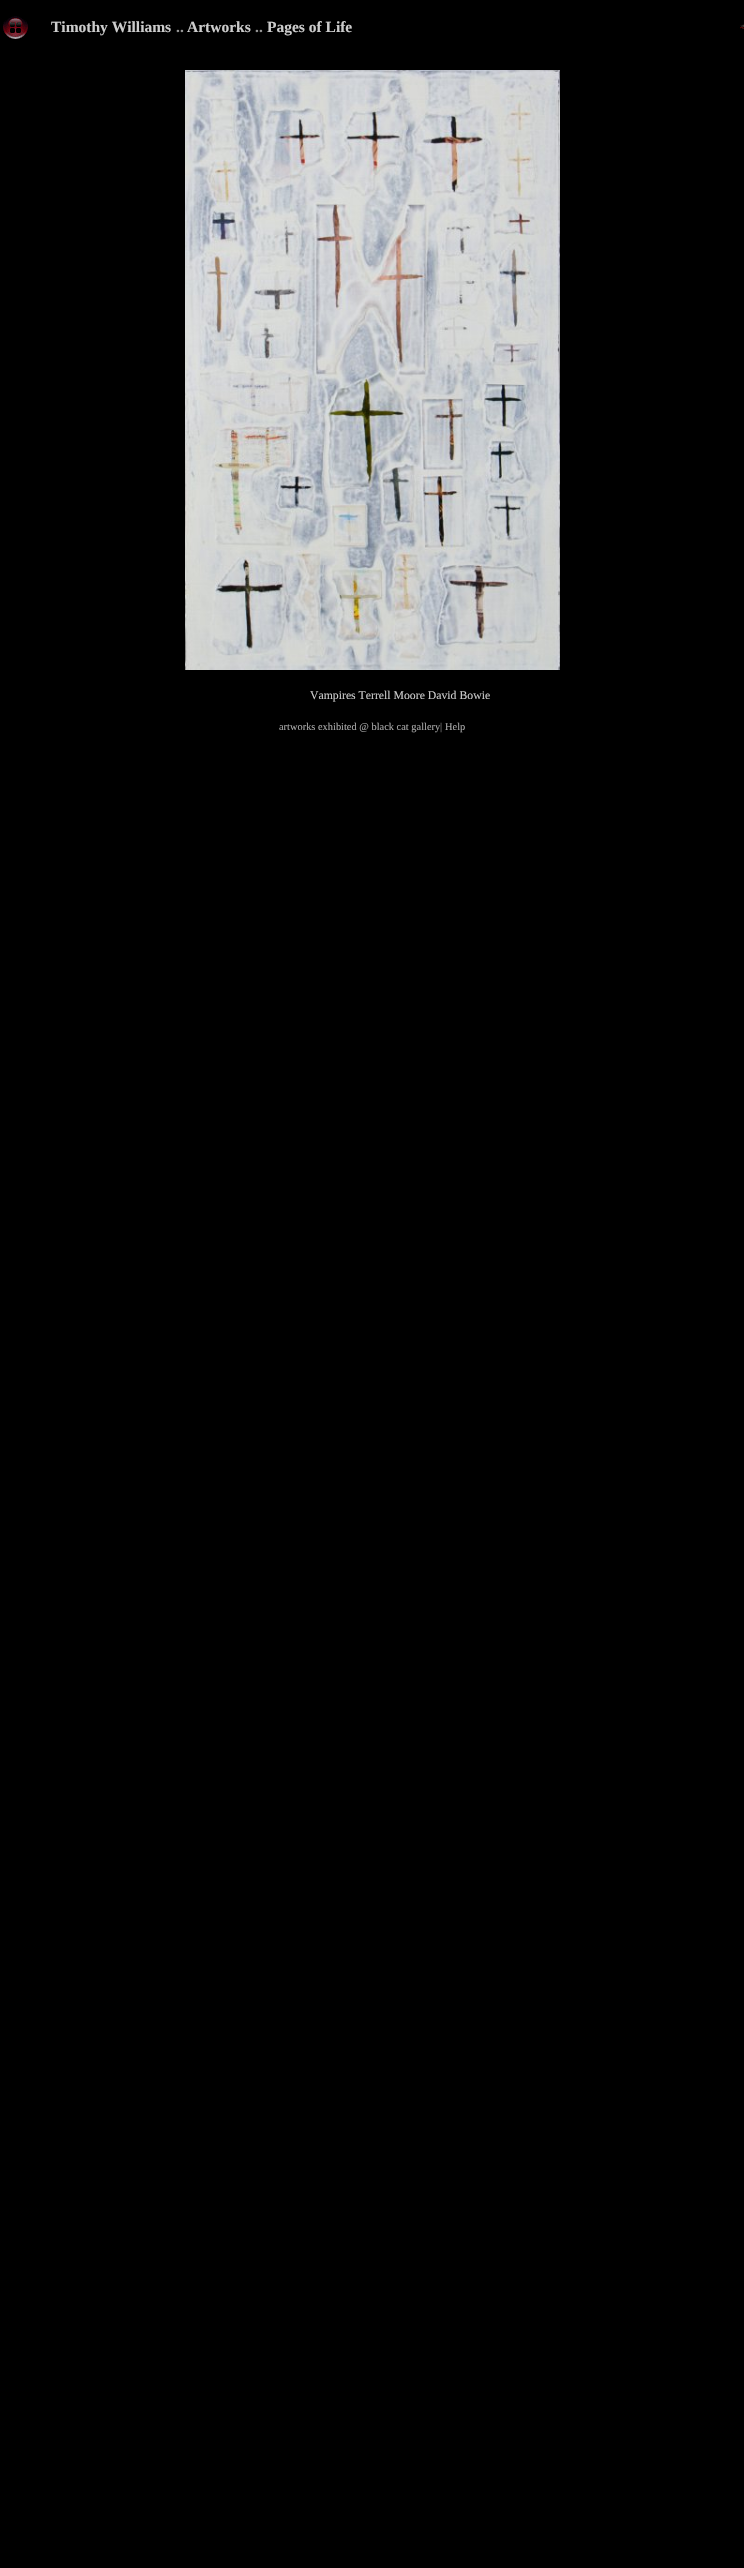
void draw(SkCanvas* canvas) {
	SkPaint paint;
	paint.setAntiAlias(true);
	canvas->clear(0xff000000);
	canvas->drawImageRect(SkImages::DeferredFromEncodedData(SkData::MakeFromFileName("img1.png")), SkRect::MakeXYWH(3, 16, 25, 23), SkSamplingOptions());
	SkFont f1(fontMgr->matchFamilyStyle("Liberation Serif", SkFontStyle::Bold()), 15.5);
	f1.setSubpixel(true);
	paint.setColor(0xffcccccc);
	canvas->drawString("Timothy Williams", 51, 32, f1, paint);
	paint.setColor(0xff999999);
	canvas->drawString("..", 176, 32, f1, paint);
	paint.setColor(0xffcccccc);
	canvas->drawString("Artworks", 187, 32, f1, paint);
	paint.setColor(0xff999999);
	canvas->drawString("..", 255, 32, f1, paint);
	paint.setColor(0xffcccccc);
	canvas->drawString("Pages of Life", 267, 32, f1, paint);
	canvas->drawImageRect(SkImages::DeferredFromEncodedData(SkData::MakeFromFileName("img2.png")), SkRect::MakeXYWH(740, 24, 4, 5), SkSamplingOptions());
	canvas->drawImageRect(SkImages::DeferredFromEncodedData(SkData::MakeFromFileName("img3.png")), SkRect::MakeXYWH(185, 70, 375, 600), SkSamplingOptions());
	SkFont f2(fontMgr->matchFamilyStyle("Liberation Serif", SkFontStyle::Normal()), 11.75);
	f2.setSubpixel(true);
	canvas->drawString("Vampires Terrell Moore David Bowie", 310, 699, f2, paint);
	SkFont f3(fontMgr->matchFamilyStyle("Liberation Serif", SkFontStyle::Normal()), 10.4);
	f3.setSubpixel(true);
	paint.setColor(0xffaaaaaa);
	canvas->drawString("artworks exhibited @ black cat gallery", 279, 730, f3, paint);
	paint.setColor(0xff888888);
	canvas->drawString("|", 440, 730, f3, paint);
	paint.setColor(0xffaaaaaa);
	canvas->drawString("Help", 445, 730, f3, paint);
}
